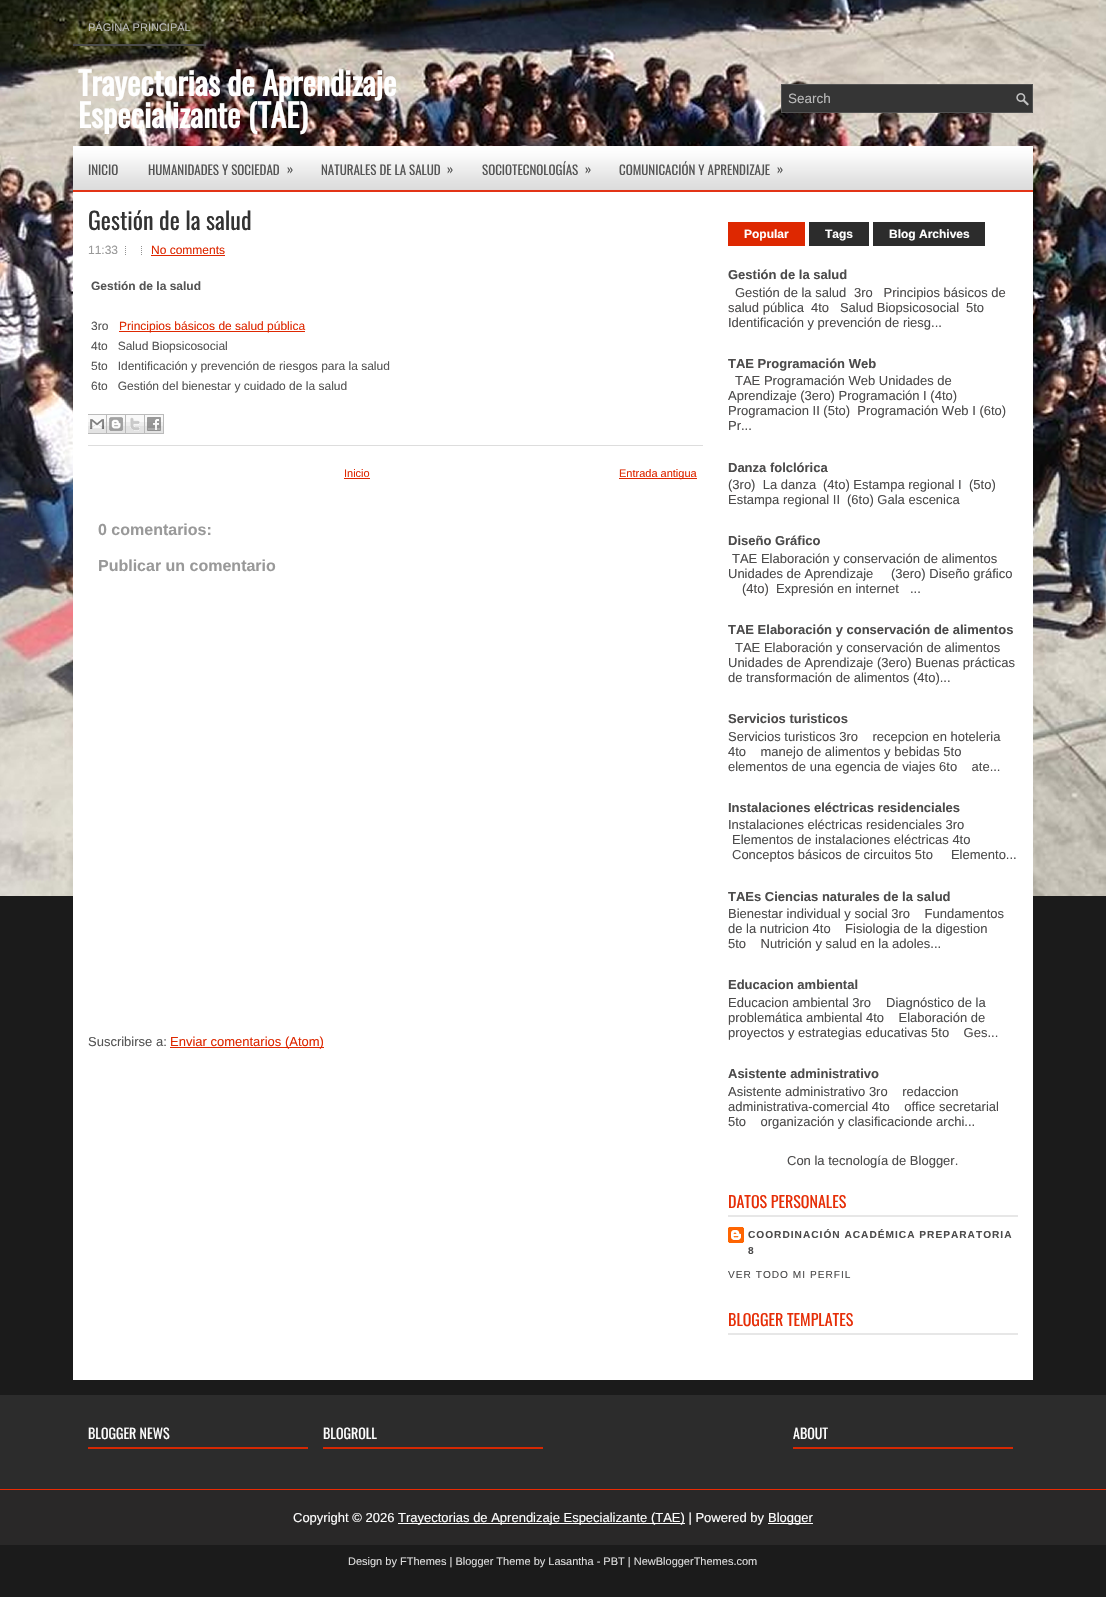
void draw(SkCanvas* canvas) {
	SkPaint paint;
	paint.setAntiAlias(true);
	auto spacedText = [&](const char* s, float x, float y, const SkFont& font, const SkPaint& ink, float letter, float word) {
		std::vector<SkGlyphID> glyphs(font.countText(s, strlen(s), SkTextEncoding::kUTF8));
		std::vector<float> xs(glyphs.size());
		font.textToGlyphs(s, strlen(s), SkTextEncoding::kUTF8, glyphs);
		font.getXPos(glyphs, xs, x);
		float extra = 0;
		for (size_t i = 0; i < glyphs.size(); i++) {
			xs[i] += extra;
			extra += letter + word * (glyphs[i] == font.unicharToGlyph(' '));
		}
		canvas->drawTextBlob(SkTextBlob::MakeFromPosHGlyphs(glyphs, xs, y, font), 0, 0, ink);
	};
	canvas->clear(0xff1b1b1b);
	canvas->drawImageRect(SkImages::DeferredFromEncodedData(SkData::MakeFromFileName("img1.png")), SkRect::MakeXYWH(0, 0, 1106, 896), SkSamplingOptions());
	paint.setColor(0xff4b4b4b);
	canvas->drawRect(SkRect::MakeXYWH(73, 44, 133, 2), paint);
	SkFont f1(fontMgr->matchFamilyStyle("Liberation Sans", SkFontStyle::Normal()), 11);
	f1.setSubpixel(true);
	paint.setColor(0xffbababa);
	canvas->drawString("PÁGINA PRINCIPAL", 88, 31, f1, paint);
	SkFont f2(fontMgr->matchFamilyStyle("Oswald", SkFontStyle::Bold()), 32);
	f2.setSubpixel(true);
	paint.setColor(0xfffefefe);
	canvas->drawString("Trayectorias de Aprendizaje", 78, 96, f2, paint);
	canvas->drawString("Especializante (TAE)", 78, 128, f2, paint);
	paint.setColor(0xff353535);
	canvas->drawRect(SkRect::MakeXYWH(782, 85, 250, 27), paint);
	canvas->drawImageRect(SkImages::DeferredFromEncodedData(SkData::MakeFromFileName("img2.png")), SkRect::MakeXYWH(1016, 93, 13, 13), SkSamplingOptions());
	paint.setStroke(true);
	paint.setStrokeWidth(1);
	paint.setColor(0xff515151);
	canvas->drawRect(SkRect::MakeXYWH(781.5, 84.5, 251, 28), paint);
	SkFont f3(fontMgr->matchFamilyStyle("Liberation Sans", SkFontStyle::Normal()), 13.5);
	f3.setSubpixel(true);
	paint.setStroke(false);
	paint.setColor(0xffbababa);
	canvas->drawString("Search", 788, 103, f3, paint);
	canvas->drawImageRect(SkImages::DeferredFromEncodedData(SkData::MakeFromFileName("img3.png")), SkRect::MakeXYWH(73, 146, 960, 44), SkSamplingOptions());
	paint.setColor(0xffe23416);
	canvas->drawRect(SkRect::MakeXYWH(73, 190, 960, 2), paint);
	SkFont f4(fontMgr->matchFamilyStyle("Oswald", SkFontStyle::Normal()), 13);
	f4.setSubpixel(true);
	paint.setColor(0xff555555);
	canvas->drawString("INICIO", 88, 175, f4, paint);
	canvas->drawString("HUMANIDADES Y SOCIEDAD", 148, 175, f4, paint);
	canvas->drawString("»", 287, 174, f4, paint);
	canvas->drawString("NATURALES DE LA SALUD", 321, 175, f4, paint);
	canvas->drawString("»", 447, 174, f4, paint);
	canvas->drawString("SOCIOTECNOLOGÍAS", 482, 175, f4, paint);
	canvas->drawString("»", 585, 174, f4, paint);
	canvas->drawString("COMUNICACIÓN Y APRENDIZAJE", 619, 175, f4, paint);
	canvas->drawString("»", 777, 174, f4, paint);
	paint.setColor(0xffffffff);
	canvas->drawRect(SkRect::MakeXYWH(73, 192, 960, 1188), paint);
	paint.setColor(0xffdddddd);
	canvas->drawRect(SkRect::MakeXYWH(88, 445, 615, 1), paint);
	SkFont f5(fontMgr->matchFamilyStyle("Oswald", SkFontStyle::Normal()), 24);
	f5.setSubpixel(true);
	paint.setColor(0xff333333);
	canvas->drawString("Gestión de la salud", 88, 230, f5, paint);
	SkFont f6(fontMgr->matchFamilyStyle("Liberation Sans", SkFontStyle::Normal()), 12);
	f6.setSubpixel(true);
	paint.setColor(0xff999999);
	canvas->drawString("11:33", 88, 254, f6, paint);
	canvas->drawImageRect(SkImages::DeferredFromEncodedData(SkData::MakeFromFileName("img4.png")), SkRect::MakeXYWH(125, 246, 1, 9), SkSamplingOptions());
	canvas->drawImageRect(SkImages::DeferredFromEncodedData(SkData::MakeFromFileName("img4.png")), SkRect::MakeXYWH(141, 246, 1, 9), SkSamplingOptions());
	paint.setColor(0xffde2801);
	canvas->drawString("No comments", 151, 254, f6, paint);
	canvas->drawRect(SkRect::MakeXYWH(151, 255, 74, 1), paint);
	SkFont f7(fontMgr->matchFamilyStyle("Liberation Sans", SkFontStyle::Bold()), 12);
	f7.setSubpixel(true);
	paint.setColor(0xff555555);
	canvas->drawString("Gestión de la salud", 91, 290, f7, paint);
	canvas->drawString("3ro", 91, 330, f6, paint);
	paint.setColor(0xffde2801);
	canvas->drawRect(SkRect::MakeXYWH(119, 331, 186, 1), paint);
	canvas->drawString("Principios básicos de salud pública", 119, 330, f6, paint);
	paint.setColor(0xff555555);
	canvas->drawString("4to   Salud Biopsicosocial", 91, 350, f6, paint);
	canvas->drawString("5to   Identificación y prevención de riesgos para la salud", 91, 370, f6, paint);
	canvas->drawString("6to   Gestión del bienestar y cuidado de la salud", 91, 390, f6, paint);
	canvas->drawImageRect(SkImages::DeferredFromEncodedData(SkData::MakeFromFileName("img5.png")), SkRect::MakeXYWH(88, 414, 19, 20), SkSamplingOptions());
	canvas->drawImageRect(SkImages::DeferredFromEncodedData(SkData::MakeFromFileName("img6.png")), SkRect::MakeXYWH(107, 414, 19, 20), SkSamplingOptions());
	canvas->drawImageRect(SkImages::DeferredFromEncodedData(SkData::MakeFromFileName("img7.png")), SkRect::MakeXYWH(126, 414, 19, 20), SkSamplingOptions());
	canvas->drawImageRect(SkImages::DeferredFromEncodedData(SkData::MakeFromFileName("img8.png")), SkRect::MakeXYWH(145, 414, 19, 20), SkSamplingOptions());
	paint.setColor(0xffde2801);
	canvas->drawString("Inicio", 344, 477, f1, paint);
	canvas->drawRect(SkRect::MakeXYWH(344, 478, 26, 1), paint);
	canvas->drawRect(SkRect::MakeXYWH(619, 478, 78, 1), paint);
	canvas->drawString("Entrada antigua", 619, 477, f1, paint);
	SkFont f8(fontMgr->matchFamilyStyle("Liberation Sans", SkFontStyle::Bold()), 16);
	f8.setSubpixel(true);
	paint.setColor(0xff999999);
	canvas->drawString("0 comentarios:", 98, 535, f8, paint);
	canvas->drawString("Publicar un comentario", 98, 571, f8, paint);
	SkFont f9(fontMgr->matchFamilyStyle("Liberation Sans", SkFontStyle::Normal()), 13);
	f9.setSubpixel(true);
	paint.setColor(0xff555555);
	canvas->drawString("Suscribirse a:", 88, 1046, f9, paint);
	paint.setColor(0xffde2801);
	canvas->drawRect(SkRect::MakeXYWH(170, 1047, 154, 1), paint);
	canvas->drawString("Enviar comentarios (Atom)", 170, 1046, f9, paint);
	canvas->drawRect(SkRect::MakeXYWH(728, 222, 77, 24), paint);
	paint.setColor(0xfffefefe);
	canvas->drawString("Popular", 744, 238, f7, paint);
	paint.setColor(0xff2c2c2c);
	canvas->drawRect(SkRect::MakeXYWH(809, 222, 60, 24), paint);
	paint.setColor(0xfffefefe);
	canvas->drawString("Tags", 825, 238, f7, paint);
	paint.setColor(0xff2c2c2c);
	canvas->drawRect(SkRect::MakeXYWH(873, 222, 112, 24), paint);
	paint.setColor(0xfffefefe);
	canvas->drawString("Blog Archives", 889, 238, f7, paint);
	SkFont f10(fontMgr->matchFamilyStyle("Liberation Sans", SkFontStyle::Bold()), 13);
	f10.setSubpixel(true);
	paint.setColor(0xff4c4b4b);
	canvas->drawString("Gestión de la salud", 728, 279, f10, paint);
	canvas->drawString("Gestión de la salud", 735, 297, f9, paint);
	canvas->drawString("3ro   Principios básicos de", 854, 297, f9, paint);
	canvas->drawString("salud pública", 728, 312, f9, paint);
	canvas->drawString("4to   Salud Biopsicosocial", 811, 312, f9, paint);
	canvas->drawString("5to", 966, 312, f9, paint);
	canvas->drawString("Identificación y prevención de riesg...", 728, 327, f9, paint);
	canvas->drawString("TAE Programación Web", 728, 368, f10, paint);
	canvas->drawString("TAE Programación Web Unidades de", 735, 385, f9, paint);
	canvas->drawString("Aprendizaje (3ero) Programación I (4to)", 728, 400, f9, paint);
	canvas->drawString("Programacion II (5to)  Programación Web I (6to)", 728, 415, f9, paint);
	canvas->drawString("Pr...", 728, 430, f9, paint);
	canvas->drawString("Danza folclórica", 728, 472, f10, paint);
	canvas->drawString("(3ro)  La danza", 728, 489, f9, paint);
	canvas->drawString("(4to) Estampa regional I", 823, 489, f9, paint);
	canvas->drawString("(5to)", 969, 489, f9, paint);
	canvas->drawString("Estampa regional II", 728, 504, f9, paint);
	canvas->drawString("(6to) Gala escenica", 847, 504, f9, paint);
	canvas->drawString("Diseño Gráfico", 728, 545, f10, paint);
	canvas->drawString("TAE Elaboración y conservación de alimentos", 732, 563, f9, paint);
	canvas->drawString("Unidades de Aprendizaje", 728, 578, f9, paint);
	canvas->drawString("(3ero) Diseño gráfico", 891, 578, f9, paint);
	canvas->drawString("(4to)  Expresión en internet", 742, 593, f9, paint);
	canvas->drawString("...", 910, 593, f9, paint);
	canvas->drawString("TAE Elaboración y conservación de alimentos", 728, 634, f10, paint);
	canvas->drawString("TAE Elaboración y conservación de alimentos", 735, 652, f9, paint);
	canvas->drawString("Unidades de Aprendizaje (3ero) Buenas prácticas", 728, 667, f9, paint);
	canvas->drawString("de transformación de alimentos (4to)...", 728, 682, f9, paint);
	canvas->drawString("Servicios turisticos", 728, 723, f10, paint);
	canvas->drawString("Servicios turisticos 3ro    recepcion en hoteleria", 728, 741, f9, paint);
	canvas->drawString("4to    manejo de alimentos y bebidas 5to", 728, 756, f9, paint);
	canvas->drawString("elementos de una egencia de viajes 6to    ate...", 728, 771, f9, paint);
	canvas->drawString("Instalaciones eléctricas residenciales", 728, 812, f10, paint);
	canvas->drawString("Instalaciones eléctricas residenciales 3ro", 728, 829, f9, paint);
	canvas->drawString("Elementos de instalaciones eléctricas 4to", 732, 844, f9, paint);
	canvas->drawString("Conceptos básicos de circuitos 5to     Elemento...", 732, 859, f9, paint);
	canvas->drawString("TAEs Ciencias naturales de la salud", 728, 901, f10, paint);
	canvas->drawString("Bienestar individual y social 3ro    Fundamentos", 728, 918, f9, paint);
	canvas->drawString("de la nutricion 4to    Fisiologia de la digestion", 728, 933, f9, paint);
	canvas->drawString("5to    Nutrición y salud en la adoles...", 728, 948, f9, paint);
	canvas->drawString("Educacion ambiental", 728, 989, f10, paint);
	canvas->drawString("Educacion ambiental 3ro", 728, 1007, f9, paint);
	canvas->drawString("Diagnóstico de la", 886, 1007, f9, paint);
	canvas->drawString("problemática ambiental 4to    Elaboración de", 728, 1022, f9, paint);
	canvas->drawString("proyectos y estrategias educativas 5to    Ges...", 728, 1037, f9, paint);
	canvas->drawString("Asistente administrativo", 728, 1078, f10, paint);
	canvas->drawString("Asistente administrativo 3ro    redaccion", 728, 1096, f9, paint);
	canvas->drawString("administrativa-comercial 4to    office secretarial", 728, 1111, f9, paint);
	canvas->drawString("5to    organización y clasificacionde archi...", 728, 1126, f9, paint);
	canvas->drawString("Con la tecnología de Blogger.", 787, 1165, f9, paint);
	paint.setColor(0xffe7e7e7);
	canvas->drawRect(SkRect::MakeXYWH(728, 1215, 290, 2), paint);
	SkFont f11(fontMgr->matchFamilyStyle("Oswald", SkFontStyle::Normal()), 16);
	f11.setSubpixel(true);
	paint.setColor(0xffe62d06);
	canvas->drawString("DATOS PERSONALES", 728, 1208, f11, paint);
	canvas->drawImageRect(SkImages::DeferredFromEncodedData(SkData::MakeFromFileName("img9.png")), SkRect::MakeXYWH(728, 1227, 16, 16), SkSamplingOptions());
	SkFont f12(fontMgr->matchFamilyStyle("Liberation Sans", SkFontStyle::Bold()), 10.15);
	f12.setSubpixel(true);
	paint.setColor(0xff4c4b4b);
	spacedText("COORDINACIÓN ACADÉMICA PREPARATORIA", 748, 1238, f12, paint, 1, 0);
	spacedText("8", 748, 1254, f12, paint, 1, 0);
	SkFont f13(fontMgr->matchFamilyStyle("Liberation Sans", SkFontStyle::Normal()), 10.15);
	f13.setSubpixel(true);
	spacedText("VER TODO MI PERFIL", 728, 1278, f13, paint, 1, 0);
	paint.setColor(0xffe7e7e7);
	canvas->drawRect(SkRect::MakeXYWH(728, 1333, 290, 2), paint);
	paint.setColor(0xffe62d06);
	canvas->drawString("BLOGGER TEMPLATES", 728, 1326, f11, paint);
	paint.setColor(0xff2c2c2c);
	canvas->drawRect(SkRect::MakeXYWH(0, 1395, 1106, 94), paint);
	paint.setColor(0xffd52803);
	canvas->drawRect(SkRect::MakeXYWH(88, 1447, 220, 2), paint);
	SkFont f14(fontMgr->matchFamilyStyle("Oswald", SkFontStyle::Normal()), 14);
	f14.setSubpixel(true);
	paint.setColor(0xfffefefe);
	canvas->drawString("BLOGGER NEWS", 88, 1439, f14, paint);
	paint.setColor(0xffd52803);
	canvas->drawRect(SkRect::MakeXYWH(323, 1447, 220, 2), paint);
	paint.setColor(0xfffefefe);
	canvas->drawString("BLOGROLL", 323, 1439, f14, paint);
	paint.setColor(0xffd52803);
	canvas->drawRect(SkRect::MakeXYWH(793, 1447, 220, 2), paint);
	paint.setColor(0xfffefefe);
	canvas->drawString("ABOUT", 793, 1439, f14, paint);
	paint.setColor(0xffea2a03);
	canvas->drawRect(SkRect::MakeXYWH(0, 1489, 1106, 1), paint);
	paint.setColor(0xff292828);
	canvas->drawRect(SkRect::MakeXYWH(0, 1490, 1106, 55), paint);
	paint.setColor(0xfffefefe);
	canvas->drawString("Copyright © 2026", 293, 1522, f9, paint);
	paint.setColor(0xffffffff);
	canvas->drawRect(SkRect::MakeXYWH(398, 1523, 287, 1), paint);
	paint.setColor(0xfffefefe);
	canvas->drawString("Trayectorias de Aprendizaje Especializante (TAE) | Powered by", 398, 1522, f9, paint);
	paint.setColor(0xffffffff);
	canvas->drawRect(SkRect::MakeXYWH(768, 1523, 45, 1), paint);
	paint.setColor(0xfffefefe);
	canvas->drawString("Blogger", 768, 1522, f9, paint);
	paint.setColor(0xffdddddd);
	canvas->drawString("Design by FThemes | Blogger Theme by Lasantha - PBT | NewBloggerThemes.com", 348, 1565, f1, paint);
}
